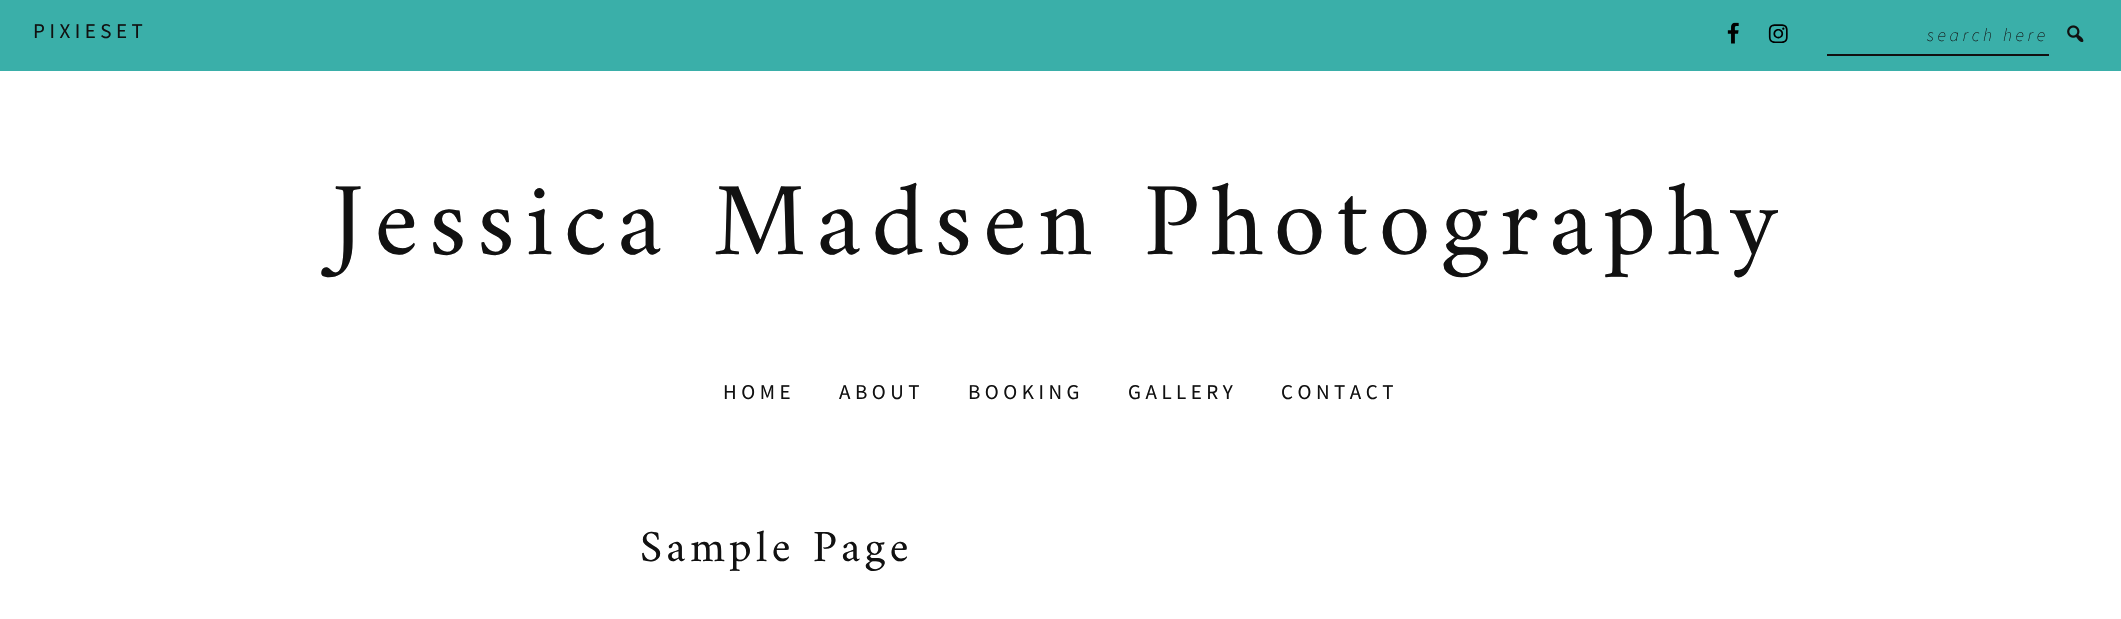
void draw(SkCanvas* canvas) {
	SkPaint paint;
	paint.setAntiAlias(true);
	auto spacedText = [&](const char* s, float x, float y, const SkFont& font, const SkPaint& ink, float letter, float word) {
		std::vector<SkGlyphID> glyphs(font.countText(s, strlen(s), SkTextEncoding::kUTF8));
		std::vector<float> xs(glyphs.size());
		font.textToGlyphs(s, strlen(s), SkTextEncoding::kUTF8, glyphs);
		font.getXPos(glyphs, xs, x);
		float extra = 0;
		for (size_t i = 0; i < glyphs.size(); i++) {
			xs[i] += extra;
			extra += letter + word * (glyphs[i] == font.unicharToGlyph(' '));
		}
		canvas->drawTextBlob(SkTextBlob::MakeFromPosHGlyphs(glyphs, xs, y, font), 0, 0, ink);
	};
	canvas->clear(0xffffffff);
	paint.setColor(0xff3aafa9);
	canvas->drawRect(SkRect::MakeXYWH(0, 0, 2121, 71), paint);
	SkFont f1(fontMgr->matchFamilyStyle("Source Sans Pro", SkFontStyle::Normal()), 21);
	f1.setSubpixel(true);
	paint.setColor(0xff111111);
	spacedText("PIXIESET", 33, 38, f1, paint, 4.5, 0);
	canvas->drawImageRect(SkImages::DeferredFromEncodedData(SkData::MakeFromFileName("img1.png")), SkRect::MakeXYWH(1727, 22, 12, 22), SkSamplingOptions());
	canvas->drawImageRect(SkImages::DeferredFromEncodedData(SkData::MakeFromFileName("img2.png")), SkRect::MakeXYWH(1768, 24, 20, 19), SkSamplingOptions());
	canvas->drawRect(SkRect::MakeXYWH(1827, 54, 222, 2), paint);
	SkFont f2(fontMgr->matchFamilyStyle("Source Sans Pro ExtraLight", SkFontStyle(200, SkFontStyle::kNormal_Width, SkFontStyle::kItalic_Slant)), 18);
	f2.setSubpixel(true);
	spacedText("search here", 1927, 41, f2, paint, 3.6, 0);
	canvas->drawImageRect(SkImages::DeferredFromEncodedData(SkData::MakeFromFileName("img3.png")), SkRect::MakeXYWH(2067, 25, 17, 17), SkSamplingOptions());
	SkFont f3(fontMgr->matchFamilyStyle("Amiri", SkFontStyle::Normal()), 105);
	f3.setSubpixel(true);
	spacedText("Jessica Madsen Photography", 332, 254, f3, paint, 10.5, 0);
	spacedText("HOME", 723, 399, f1, paint, 4.5, 0);
	spacedText("ABOUT", 839, 399, f1, paint, 4.5, 0);
	spacedText("BOOKING", 968, 399, f1, paint, 4.5, 0);
	spacedText("GALLERY", 1128, 399, f1, paint, 4.5, 0);
	spacedText("CONTACT", 1281, 399, f1, paint, 4.5, 0);
	SkFont f4(fontMgr->matchFamilyStyle("Amiri", SkFontStyle::Normal()), 45);
	f4.setSubpixel(true);
	spacedText("Sample Page", 640, 561, f4, paint, 4.5, 0);
}
